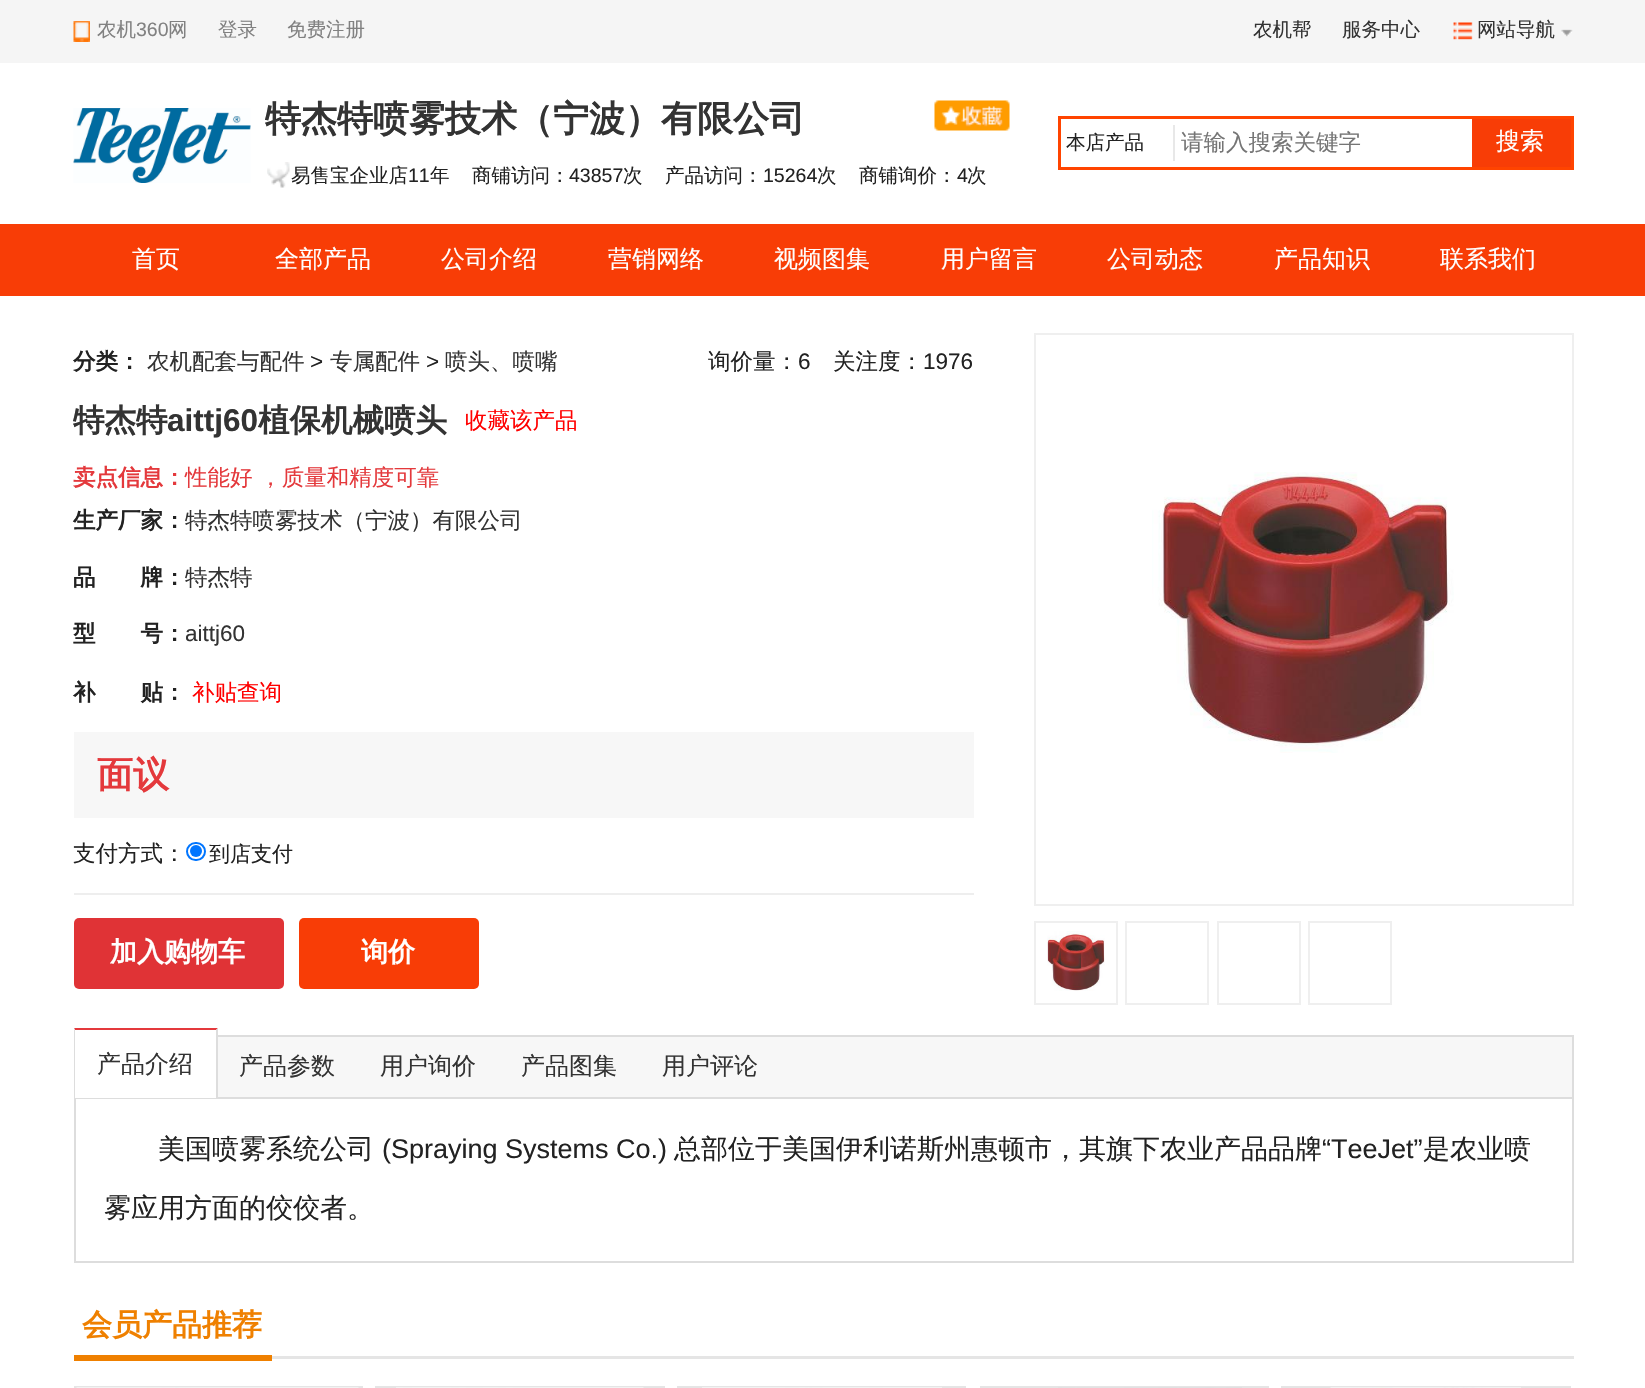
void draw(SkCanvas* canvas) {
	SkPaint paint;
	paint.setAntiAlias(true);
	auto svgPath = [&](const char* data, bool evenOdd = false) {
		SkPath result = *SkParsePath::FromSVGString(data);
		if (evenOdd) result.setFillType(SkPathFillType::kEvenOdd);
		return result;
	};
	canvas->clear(0xffffffff);
	paint.setColor(0xfff5f5f5);
	canvas->drawRect(SkRect::MakeXYWH(0, 0, 1645, 63), paint);
	canvas->drawImageRect(SkImages::DeferredFromEncodedData(SkData::MakeFromFileName("img1.png")), SkRect::MakeXYWH(73, 21, 17, 21), SkSamplingOptions());
	SkFont f1(fontMgr->matchFamilyStyle("WenQuanYi Zen Hei", SkFontStyle(500, SkFontStyle::kNormal_Width, SkFontStyle::kUpright_Slant)), 19.5);
	f1.setSubpixel(true);
	paint.setColor(0xff818181);
	canvas->drawString("农机", 97, 36, f1, paint);
	SkFont f2(fontMgr->matchFamilyStyle("Liberation Sans", SkFontStyle::Normal()), 19.5);
	f2.setSubpixel(true);
	canvas->drawString("360", 136, 36, f2, paint);
	canvas->drawString("网", 168, 36, f1, paint);
	canvas->drawString("登录", 218, 36, f1, paint);
	canvas->drawString("免费注册", 287, 36, f1, paint);
	paint.setColor(0xff333333);
	canvas->drawString("农机帮", 1253, 36, f1, paint);
	canvas->drawString("服务中心", 1342, 36, f1, paint);
	canvas->drawImageRect(SkImages::DeferredFromEncodedData(SkData::MakeFromFileName("img2.png")), SkRect::MakeXYWH(1453, 22, 20, 18), SkSamplingOptions());
	canvas->drawString("网站导航", 1477, 36, f1, paint);
	canvas->drawImageRect(SkImages::DeferredFromEncodedData(SkData::MakeFromFileName("img3.png")), SkRect::MakeXYWH(1561, 29, 12, 8), SkSamplingOptions());
	canvas->drawImageRect(SkImages::DeferredFromEncodedData(SkData::MakeFromFileName("img4.png")), SkRect::MakeXYWH(73, 108, 178, 75), SkSamplingOptions());
	SkFont f3(fontMgr->matchFamilyStyle("WenQuanYi Zen Hei", SkFontStyle::Bold()), 36);
	f3.setSubpixel(true);
	canvas->drawString("特杰特喷雾技术（宁波）有限公司", 265, 131, f3, paint);
	canvas->drawImageRect(SkImages::DeferredFromEncodedData(SkData::MakeFromFileName("img5.png")), SkRect::MakeXYWH(934, 100, 76, 31), SkSamplingOptions());
	canvas->drawImageRect(SkImages::DeferredFromEncodedData(SkData::MakeFromFileName("img6.png")), SkRect::MakeXYWH(267, 162, 23, 26), SkSamplingOptions());
	paint.setColor(0xff222222);
	canvas->drawString("易售宝企业店", 291, 182, f1, paint);
	canvas->drawString("11", 408, 182, f2, paint);
	canvas->drawString("年", 430, 182, f1, paint);
	canvas->drawString("商铺访问：", 472, 182, f1, paint);
	canvas->drawString("43857", 569, 182, f2, paint);
	canvas->drawString("次", 623, 182, f1, paint);
	canvas->drawString("产品访问：", 665, 182, f1, paint);
	canvas->drawString("15264", 763, 182, f2, paint);
	canvas->drawString("次", 817, 182, f1, paint);
	canvas->drawString("商铺询价：", 859, 182, f1, paint);
	canvas->drawString("4", 957, 182, f2, paint);
	canvas->drawString("次", 967, 182, f1, paint);
	paint.setStroke(true);
	paint.setStrokeWidth(3);
	paint.setColor(0xffff4400);
	canvas->drawRect(SkRect::MakeXYWH(1059.5, 117.5, 513, 51), paint);
	paint.setStroke(false);
	paint.setColor(0xff222222);
	canvas->drawString("本店产品", 1066, 149, f1, paint);
	paint.setColor(0xffe8e8e8);
	canvas->drawRect(SkRect::MakeXYWH(1173, 125, 2, 36), paint);
	SkFont f4(fontMgr->matchFamilyStyle("WenQuanYi Zen Hei", SkFontStyle(500, SkFontStyle::kNormal_Width, SkFontStyle::kUpright_Slant)), 22.5);
	f4.setSubpixel(true);
	paint.setColor(0xff757575);
	canvas->drawString("请输入搜索关键字", 1181, 150, f4, paint);
	paint.setColor(0xfff83d06);
	canvas->drawRect(SkRect::MakeXYWH(1472, 119, 99, 48), paint);
	SkFont f5(fontMgr->matchFamilyStyle("WenQuanYi Zen Hei", SkFontStyle(500, SkFontStyle::kNormal_Width, SkFontStyle::kUpright_Slant)), 24);
	f5.setSubpixel(true);
	paint.setColor(0xffffffff);
	canvas->drawString("搜索", 1496, 149, f5, paint);
	paint.setColor(0xfff83d06);
	canvas->drawRect(SkRect::MakeXYWH(0, 224, 1645, 72), paint);
	paint.setColor(0xffffffff);
	canvas->drawString("首页", 132, 267, f5, paint);
	canvas->drawString("全部产品", 275, 267, f5, paint);
	canvas->drawString("公司介绍", 441, 267, f5, paint);
	canvas->drawString("营销网络", 608, 267, f5, paint);
	canvas->drawString("视频图集", 774, 267, f5, paint);
	canvas->drawString("用户留言", 941, 267, f5, paint);
	canvas->drawString("公司动态", 1107, 267, f5, paint);
	canvas->drawString("产品知识", 1274, 267, f5, paint);
	canvas->drawString("联系我们", 1440, 267, f5, paint);
	SkFont f6(fontMgr->matchFamilyStyle("WenQuanYi Zen Hei", SkFontStyle::Bold()), 22.5);
	f6.setSubpixel(true);
	paint.setColor(0xff222222);
	canvas->drawString("分类：", 73, 369, f6, paint);
	paint.setColor(0xff333333);
	canvas->drawString("农机配套与配件", 147, 369, f4, paint);
	SkFont f7(fontMgr->matchFamilyStyle("Liberation Sans", SkFontStyle::Normal()), 22.5);
	f7.setSubpixel(true);
	paint.setColor(0xff222222);
	canvas->drawString(">", 310, 369, f7, paint);
	paint.setColor(0xff333333);
	canvas->drawString("专属配件", 330, 369, f4, paint);
	paint.setColor(0xff222222);
	canvas->drawString(">", 426, 369, f7, paint);
	paint.setColor(0xff333333);
	canvas->drawString("喷头、喷嘴", 445, 369, f4, paint);
	paint.setColor(0xff222222);
	canvas->drawString("询价量：", 708, 369, f4, paint);
	canvas->drawString("6", 798, 369, f7, paint);
	canvas->drawString("关注度：", 833, 369, f4, paint);
	canvas->drawString("1976", 923, 369, f7, paint);
	SkFont f8(fontMgr->matchFamilyStyle("WenQuanYi Zen Hei", SkFontStyle::Bold()), 31.5);
	f8.setSubpixel(true);
	paint.setColor(0xff333333);
	canvas->drawString("特杰特", 73, 431, f8, paint);
	SkFont f9(fontMgr->matchFamilyStyle("Liberation Sans", SkFontStyle::Bold()), 31.5);
	f9.setSubpixel(true);
	canvas->drawString("aittj60", 167, 431, f9, paint);
	canvas->drawString("植保机械喷头", 258, 431, f8, paint);
	paint.setColor(0xffff0000);
	canvas->drawString("收藏该产品", 465, 428, f4, paint);
	paint.setColor(0xffe4393c);
	canvas->drawString("卖点信息：", 73, 485, f6, paint);
	canvas->drawString("性能好 ，质量和精度可靠", 185, 485, f4, paint);
	paint.setColor(0xff222222);
	canvas->drawString("生产厂家：", 73, 528, f6, paint);
	paint.setColor(0xff333333);
	canvas->drawString("特杰特喷雾技术（宁波）有限公司", 185, 528, f4, paint);
	paint.setColor(0xff222222);
	canvas->drawString("品　　牌：", 73, 585, f6, paint);
	paint.setColor(0xff333333);
	canvas->drawString("特杰特", 185, 585, f4, paint);
	paint.setColor(0xff222222);
	canvas->drawString("型　　号：", 73, 641, f6, paint);
	paint.setColor(0xff333333);
	canvas->drawString("aittj60", 185, 641, f7, paint);
	paint.setColor(0xff222222);
	canvas->drawString("补　　贴：", 73, 700, f6, paint);
	paint.setColor(0xffff0000);
	canvas->drawString("补贴查询", 192, 700, f4, paint);
	paint.setColor(0xfff7f7f7);
	canvas->drawRect(SkRect::MakeXYWH(74, 732, 900, 86), paint);
	paint.setColor(0xffe4393c);
	canvas->drawString("面议", 97, 787, f3, paint);
	paint.setColor(0xffeeeeee);
	canvas->drawRect(SkRect::MakeXYWH(74, 893, 900, 2), paint);
	paint.setColor(0xff222222);
	canvas->drawString("支付方式：", 73, 861, f4, paint);
	paint.setStroke(true);
	paint.setStrokeWidth(2);
	paint.setColor(0xff0075ff);
	canvas->drawRoundRect(SkRect::MakeXYWH(187, 843, 18, 17), 8.5, 8.5, paint);
	paint.setStroke(false);
	canvas->drawCircle(196, 851, 6, paint);
	SkFont f10(fontMgr->matchFamilyStyle("WenQuanYi Zen Hei", SkFontStyle(500, SkFontStyle::kNormal_Width, SkFontStyle::kUpright_Slant)), 21);
	f10.setSubpixel(true);
	paint.setColor(0xff222222);
	canvas->drawString("到店支付", 209, 861, f10, paint);
	paint.setColor(0xffe03336);
	canvas->drawRoundRect(SkRect::MakeXYWH(74, 918, 210, 71), 5, 5, paint);
	SkFont f11(fontMgr->matchFamilyStyle("WenQuanYi Zen Hei", SkFontStyle::Bold()), 27);
	f11.setSubpixel(true);
	paint.setColor(0xffffffff);
	canvas->drawString("加入购物车", 110, 961, f11, paint);
	paint.setColor(0xfff83d06);
	canvas->drawRoundRect(SkRect::MakeXYWH(299, 918, 180, 71), 5, 5, paint);
	paint.setColor(0xffffffff);
	canvas->drawString("询价", 361, 961, f11, paint);
	paint.setStroke(true);
	paint.setColor(0xffefefef);
	canvas->drawRect(SkRect::MakeXYWH(1035, 334, 538, 571), paint);
	canvas->drawImageRect(SkImages::DeferredFromEncodedData(SkData::MakeFromFileName("img7.png")), SkRect::MakeXYWH(1152, 472, 302, 281), SkSamplingOptions());
	canvas->drawRect(SkRect::MakeXYWH(1035, 922, 82, 82), paint);
	canvas->drawImageRect(SkImages::DeferredFromEncodedData(SkData::MakeFromFileName("img8.png")), SkRect::MakeXYWH(1047, 931, 58, 60), SkSamplingOptions());
	canvas->drawRect(SkRect::MakeXYWH(1126, 922, 82, 82), paint);
	canvas->drawRect(SkRect::MakeXYWH(1218, 922, 82, 82), paint);
	canvas->drawRect(SkRect::MakeXYWH(1309, 922, 82, 82), paint);
	paint.setColor(0xffdddddd);
	canvas->drawRect(SkRect::MakeXYWH(75, 1036, 1498, 226), paint);
	paint.setStroke(false);
	paint.setColor(0xfff7f7f7);
	canvas->drawRect(SkRect::MakeXYWH(218, 1037, 1354, 60), paint);
	paint.setColor(0xffdddddd);
	canvas->drawRect(SkRect::MakeXYWH(75, 1097, 1497, 2), paint);
	paint.setColor(0xffffffff);
	canvas->drawRect(SkRect::MakeXYWH(74, 1035, 144, 63), paint);
	paint.setColor(0xffe4393c);
	canvas->drawPath(svgPath("M74 1028H218L216 1030H75Z"), paint);
	paint.setColor(0xffdddddd);
	canvas->drawPath(svgPath("M218 1028V1098H216V1030Z"), paint);
	canvas->drawPath(svgPath("M74 1098V1028L75 1030V1098Z"), paint);
	paint.setColor(0xff333333);
	canvas->drawString("产品介绍", 97, 1072, f5, paint);
	canvas->drawString("产品参数", 239, 1074, f5, paint);
	canvas->drawString("用户询价", 380, 1074, f5, paint);
	canvas->drawString("产品图集", 521, 1074, f5, paint);
	canvas->drawString("用户评论", 662, 1074, f5, paint);
	SkFont f12(fontMgr->matchFamilyStyle("WenQuanYi Zen Hei", SkFontStyle(500, SkFontStyle::kNormal_Width, SkFontStyle::kUpright_Slant)), 27);
	f12.setSubpixel(true);
	paint.setColor(0xff222222);
	canvas->drawString("美国喷雾系统公司", 158, 1158, f12, paint);
	SkFont f13(fontMgr->matchFamilyStyle("Liberation Sans", SkFontStyle::Normal()), 27);
	f13.setSubpixel(true);
	canvas->drawString("(Spraying Systems Co.)", 382, 1158, f13, paint);
	canvas->drawString("总部位于美国伊利诺斯州惠顿市，其旗下农业产品品牌", 674, 1158, f12, paint);
	canvas->drawString("“TeeJet”", 1322, 1158, f13, paint);
	canvas->drawString("是农业喷", 1423, 1158, f12, paint);
	canvas->drawString("雾应用方面的佼佼者。", 104, 1217, f12, paint);
	paint.setColor(0xffe5e5e5);
	canvas->drawRect(SkRect::MakeXYWH(272, 1356, 1302, 3), paint);
	paint.setColor(0xffef8000);
	canvas->drawRect(SkRect::MakeXYWH(74, 1355, 198, 6), paint);
	SkFont f14(fontMgr->matchFamilyStyle("WenQuanYi Zen Hei", SkFontStyle::Bold()), 30);
	f14.setSubpixel(true);
	canvas->drawString("会员产品推荐", 82, 1335, f14, paint);
	paint.setStroke(true);
	paint.setColor(0xffe5e5e5);
	canvas->drawRect(SkRect::MakeXYWH(75, 1387, 287, 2), paint);
	canvas->drawImageRect(SkImages::DeferredFromEncodedData(SkData::MakeFromFileName("img9.png")), SkRect::MakeXYWH(76, 1387, 283, 1), SkSamplingOptions());
	canvas->drawRect(SkRect::MakeXYWH(376, 1387, 288, 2), paint);
	canvas->drawImageRect(SkImages::DeferredFromEncodedData(SkData::MakeFromFileName("img10.png")), SkRect::MakeXYWH(396, 1387, 248, 1), SkSamplingOptions());
	canvas->drawRect(SkRect::MakeXYWH(678, 1387, 287, 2), paint);
	canvas->drawImageRect(SkImages::DeferredFromEncodedData(SkData::MakeFromFileName("img11.png")), SkRect::MakeXYWH(702, 1387, 240, 1), SkSamplingOptions());
	canvas->drawRect(SkRect::MakeXYWH(981, 1387, 287, 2), paint);
	canvas->drawImageRect(SkImages::DeferredFromEncodedData(SkData::MakeFromFileName("img12.png")), SkRect::MakeXYWH(1058, 1387, 184, 1), SkSamplingOptions());
	canvas->drawRect(SkRect::MakeXYWH(1282, 1387, 288, 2), paint);
	canvas->drawImageRect(SkImages::DeferredFromEncodedData(SkData::MakeFromFileName("img13.png")), SkRect::MakeXYWH(1330, 1387, 191, 1), SkSamplingOptions());
}
